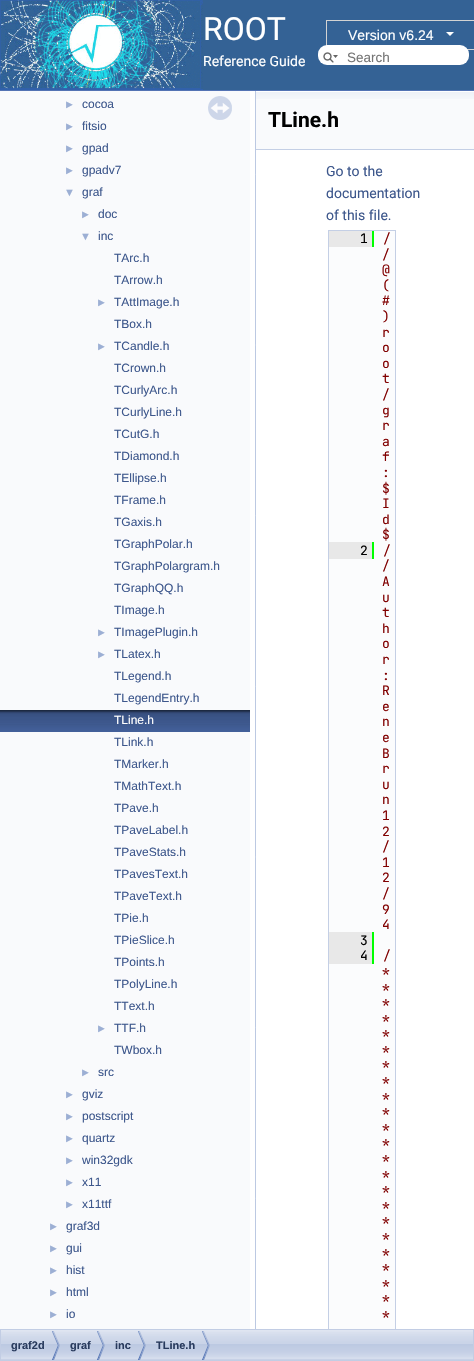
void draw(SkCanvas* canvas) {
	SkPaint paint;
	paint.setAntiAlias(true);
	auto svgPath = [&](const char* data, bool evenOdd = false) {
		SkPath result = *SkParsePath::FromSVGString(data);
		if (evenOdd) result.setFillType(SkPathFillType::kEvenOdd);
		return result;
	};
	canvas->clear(0xffffffff);
	paint.setColor(0xff5373b4);
	canvas->drawRect(SkRect::MakeXYWH(0, 90, 474, 1), paint);
	paint.setColor(0xff346295);
	canvas->drawRect(SkRect::MakeXYWH(203, 0, 271, 90), paint);
	canvas->drawImageRect(SkImages::DeferredFromEncodedData(SkData::MakeFromFileName("img1.png")), SkRect::MakeXYWH(0, 0, 203, 90), SkSamplingOptions());
	SkFont f1(fontMgr->matchFamilyStyle("Roboto", SkFontStyle::Normal()), 32);
	f1.setSubpixel(true);
	paint.setColor(0xffffffff);
	canvas->drawString("ROOT", 203, 40, f1, paint);
	paint.setStroke(true);
	paint.setStrokeWidth(1);
	paint.setColor(0xffd3d3d3);
	canvas->drawRect(SkRect::MakeXYWH(326.5, 20.5, 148, 29), paint);
	SkFont f2(fontMgr->matchFamilyStyle("Liberation Sans", SkFontStyle::Normal()), 14);
	f2.setSubpixel(true);
	paint.setStroke(false);
	paint.setColor(0xffffffff);
	canvas->drawString("Version v6.24", 348, 40, f2, paint);
	canvas->drawPath(svgPath("M446 32H454L450 36Z"), paint);
	SkFont f3(fontMgr->matchFamilyStyle("Roboto", SkFontStyle::Normal()), 14);
	f3.setSubpixel(true);
	canvas->drawString("Reference Guide", 203, 66, f3, paint);
	canvas->drawRoundRect(SkRect::MakeXYWH(318, 45, 151, 20), 9, 9, paint);
	canvas->drawImageRect(SkImages::DeferredFromEncodedData(SkData::MakeFromFileName("img2.png")), SkRect::MakeXYWH(323, 52, 15, 11), SkSamplingOptions());
	SkFont f4(fontMgr->matchFamilyStyle("Liberation Sans", SkFontStyle::Normal()), 13.5);
	f4.setSubpixel(true);
	paint.setColor(0xff757575);
	canvas->drawString("Search", 347, 62, f4, paint);
	paint.setColor(0xfff9fafc);
	canvas->drawRect(SkRect::MakeXYWH(0, 91, 250, 1238), paint);
	canvas->drawImageRect(SkImages::DeferredFromEncodedData(SkData::MakeFromFileName("img3.png")), SkRect::MakeXYWH(208, 96, 24, 24), SkSamplingOptions());
	SkFont f5(fontMgr->matchFamilyStyle("Liberation Sans", SkFontStyle::Normal()), 11);
	f5.setSubpixel(true);
	paint.setColor(0xff9cafd4);
	canvas->drawString("►", 64, 108, f5, paint);
	SkFont f6(fontMgr->matchFamilyStyle("Liberation Sans", SkFontStyle::Normal()), 12);
	f6.setSubpixel(true);
	paint.setColor(0xff3d578c);
	canvas->drawString("cocoa", 82, 108, f6, paint);
	paint.setColor(0xff9cafd4);
	canvas->drawString("►", 64, 130, f5, paint);
	paint.setColor(0xff3d578c);
	canvas->drawString("fitsio", 82, 130, f6, paint);
	paint.setColor(0xff9cafd4);
	canvas->drawString("►", 64, 152, f5, paint);
	paint.setColor(0xff3d578c);
	canvas->drawString("gpad", 82, 152, f6, paint);
	paint.setColor(0xff9cafd4);
	canvas->drawString("►", 64, 174, f5, paint);
	paint.setColor(0xff3d578c);
	canvas->drawString("gpadv7", 82, 174, f6, paint);
	paint.setColor(0xff9cafd4);
	canvas->drawString("▼", 64, 196, f5, paint);
	paint.setColor(0xff3d578c);
	canvas->drawString("graf", 82, 196, f6, paint);
	paint.setColor(0xff9cafd4);
	canvas->drawString("►", 80, 218, f5, paint);
	paint.setColor(0xff3d578c);
	canvas->drawString("doc", 98, 218, f6, paint);
	paint.setColor(0xff9cafd4);
	canvas->drawString("▼", 80, 240, f5, paint);
	paint.setColor(0xff3d578c);
	canvas->drawString("inc", 98, 240, f6, paint);
	canvas->drawString("TArc.h", 114, 262, f6, paint);
	canvas->drawString("TArrow.h", 114, 284, f6, paint);
	paint.setColor(0xff9cafd4);
	canvas->drawString("►", 96, 306, f5, paint);
	paint.setColor(0xff3d578c);
	canvas->drawString("TAttImage.h", 114, 306, f6, paint);
	canvas->drawString("TBox.h", 114, 328, f6, paint);
	paint.setColor(0xff9cafd4);
	canvas->drawString("►", 96, 350, f5, paint);
	paint.setColor(0xff3d578c);
	canvas->drawString("TCandle.h", 114, 350, f6, paint);
	canvas->drawString("TCrown.h", 114, 372, f6, paint);
	canvas->drawString("TCurlyArc.h", 114, 394, f6, paint);
	canvas->drawString("TCurlyLine.h", 114, 416, f6, paint);
	canvas->drawString("TCutG.h", 114, 438, f6, paint);
	canvas->drawString("TDiamond.h", 114, 460, f6, paint);
	canvas->drawString("TEllipse.h", 114, 482, f6, paint);
	canvas->drawString("TFrame.h", 114, 504, f6, paint);
	canvas->drawString("TGaxis.h", 114, 526, f6, paint);
	canvas->drawString("TGraphPolar.h", 114, 548, f6, paint);
	canvas->drawString("TGraphPolargram.h", 114, 570, f6, paint);
	canvas->drawString("TGraphQQ.h", 114, 592, f6, paint);
	canvas->drawString("TImage.h", 114, 614, f6, paint);
	paint.setColor(0xff9cafd4);
	canvas->drawString("►", 96, 636, f5, paint);
	paint.setColor(0xff3d578c);
	canvas->drawString("TImagePlugin.h", 114, 636, f6, paint);
	paint.setColor(0xff9cafd4);
	canvas->drawString("►", 96, 658, f5, paint);
	paint.setColor(0xff3d578c);
	canvas->drawString("TLatex.h", 114, 658, f6, paint);
	canvas->drawString("TLegend.h", 114, 680, f6, paint);
	canvas->drawString("TLegendEntry.h", 114, 702, f6, paint);
	canvas->drawImageRect(SkImages::DeferredFromEncodedData(SkData::MakeFromFileName("img4.png")), SkRect::MakeXYWH(0, 710, 250, 22), SkSamplingOptions());
	paint.setColor(0xffffffff);
	canvas->drawString("TLine.h", 114, 724, f6, paint);
	paint.setColor(0xff3d578c);
	canvas->drawString("TLink.h", 114, 746, f6, paint);
	canvas->drawString("TMarker.h", 114, 768, f6, paint);
	canvas->drawString("TMathText.h", 114, 790, f6, paint);
	canvas->drawString("TPave.h", 114, 812, f6, paint);
	canvas->drawString("TPaveLabel.h", 114, 834, f6, paint);
	canvas->drawString("TPaveStats.h", 114, 856, f6, paint);
	canvas->drawString("TPavesText.h", 114, 878, f6, paint);
	canvas->drawString("TPaveText.h", 114, 900, f6, paint);
	canvas->drawString("TPie.h", 114, 922, f6, paint);
	canvas->drawString("TPieSlice.h", 114, 944, f6, paint);
	canvas->drawString("TPoints.h", 114, 966, f6, paint);
	canvas->drawString("TPolyLine.h", 114, 988, f6, paint);
	canvas->drawString("TText.h", 114, 1010, f6, paint);
	paint.setColor(0xff9cafd4);
	canvas->drawString("►", 96, 1032, f5, paint);
	paint.setColor(0xff3d578c);
	canvas->drawString("TTF.h", 114, 1032, f6, paint);
	canvas->drawString("TWbox.h", 114, 1054, f6, paint);
	paint.setColor(0xff9cafd4);
	canvas->drawString("►", 80, 1076, f5, paint);
	paint.setColor(0xff3d578c);
	canvas->drawString("src", 98, 1076, f6, paint);
	paint.setColor(0xff9cafd4);
	canvas->drawString("►", 64, 1098, f5, paint);
	paint.setColor(0xff3d578c);
	canvas->drawString("gviz", 82, 1098, f6, paint);
	paint.setColor(0xff9cafd4);
	canvas->drawString("►", 64, 1120, f5, paint);
	paint.setColor(0xff3d578c);
	canvas->drawString("postscript", 82, 1120, f6, paint);
	paint.setColor(0xff9cafd4);
	canvas->drawString("►", 64, 1142, f5, paint);
	paint.setColor(0xff3d578c);
	canvas->drawString("quartz", 82, 1142, f6, paint);
	paint.setColor(0xff9cafd4);
	canvas->drawString("►", 64, 1164, f5, paint);
	paint.setColor(0xff3d578c);
	canvas->drawString("win32gdk", 82, 1164, f6, paint);
	paint.setColor(0xff9cafd4);
	canvas->drawString("►", 64, 1186, f5, paint);
	paint.setColor(0xff3d578c);
	canvas->drawString("x11", 82, 1186, f6, paint);
	paint.setColor(0xff9cafd4);
	canvas->drawString("►", 64, 1208, f5, paint);
	paint.setColor(0xff3d578c);
	canvas->drawString("x11ttf", 82, 1208, f6, paint);
	paint.setColor(0xff9cafd4);
	canvas->drawString("►", 48, 1230, f5, paint);
	paint.setColor(0xff3d578c);
	canvas->drawString("graf3d", 66, 1230, f6, paint);
	paint.setColor(0xff9cafd4);
	canvas->drawString("►", 48, 1252, f5, paint);
	paint.setColor(0xff3d578c);
	canvas->drawString("gui", 66, 1252, f6, paint);
	paint.setColor(0xff9cafd4);
	canvas->drawString("►", 48, 1274, f5, paint);
	paint.setColor(0xff3d578c);
	canvas->drawString("hist", 66, 1274, f6, paint);
	paint.setColor(0xff9cafd4);
	canvas->drawString("►", 48, 1296, f5, paint);
	paint.setColor(0xff3d578c);
	canvas->drawString("html", 66, 1296, f6, paint);
	paint.setColor(0xff9cafd4);
	canvas->drawString("►", 48, 1318, f5, paint);
	paint.setColor(0xff3d578c);
	canvas->drawString("io", 66, 1318, f6, paint);
	canvas->drawImageRect(SkImages::DeferredFromEncodedData(SkData::MakeFromFileName("img5.png")), SkRect::MakeXYWH(255, 91, 1, 1238), SkSamplingOptions());
	paint.setColor(0xfff9fafc);
	canvas->drawRect(SkRect::MakeXYWH(256, 99, 218, 50), paint);
	canvas->drawImageRect(SkImages::DeferredFromEncodedData(SkData::MakeFromFileName("img6.png")), SkRect::MakeXYWH(256, 91, 218, 8), SkSamplingOptions());
	paint.setColor(0xffc4cfe5);
	canvas->drawRect(SkRect::MakeXYWH(256, 149, 218, 1), paint);
	SkFont f7(fontMgr->matchFamilyStyle("Roboto", SkFontStyle::Bold()), 21);
	f7.setSubpixel(true);
	paint.setColor(0xff000000);
	canvas->drawString("TLine.h", 268, 127, f7, paint);
	paint.setColor(0xff3d578c);
	canvas->drawString("Go to the", 326, 176, f3, paint);
	canvas->drawString("documentation", 326, 198, f3, paint);
	canvas->drawString("of this file.", 326, 220, f3, paint);
	paint.setColor(0xfffbfcfd);
	canvas->drawRect(SkRect::MakeXYWH(329, 231, 66, 1098), paint);
	paint.setStroke(true);
	paint.setColor(0xffc4cfe5);
	canvas->drawRect(SkRect::MakeXYWH(328.5, 230.5, 67, 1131), paint);
	paint.setStroke(false);
	paint.setColor(0xffe8e8e8);
	canvas->drawRect(SkRect::MakeXYWH(329, 231, 43, 16), paint);
	SkFont f8(fontMgr->matchFamilyStyle("JetBrains Mono", SkFontStyle::Normal()), 13);
	f8.setSubpixel(true);
	paint.setColor(0xff000000);
	canvas->drawString("1", 360, 243, f8, paint);
	paint.setColor(0xff00ff00);
	canvas->drawRect(SkRect::MakeXYWH(372, 231, 2, 16), paint);
	paint.setColor(0xff800000);
	canvas->drawString("/", 383, 243, f8, paint);
	canvas->drawString("/", 382, 259, f8, paint);
	canvas->drawString("@", 382, 274, f8, paint);
	canvas->drawString("(", 382, 290, f8, paint);
	canvas->drawString("#", 382, 305, f8, paint);
	canvas->drawString(")", 382, 321, f8, paint);
	canvas->drawString("r", 382, 337, f8, paint);
	canvas->drawString("o", 382, 352, f8, paint);
	canvas->drawString("o", 382, 368, f8, paint);
	canvas->drawString("t", 382, 383, f8, paint);
	canvas->drawString("/", 382, 399, f8, paint);
	canvas->drawString("g", 382, 415, f8, paint);
	canvas->drawString("r", 382, 430, f8, paint);
	canvas->drawString("a", 382, 446, f8, paint);
	canvas->drawString("f", 382, 461, f8, paint);
	canvas->drawString(":", 382, 477, f8, paint);
	canvas->drawString("$", 382, 493, f8, paint);
	canvas->drawString("I", 382, 508, f8, paint);
	canvas->drawString("d", 382, 524, f8, paint);
	canvas->drawString("$", 382, 539, f8, paint);
	paint.setColor(0xffe8e8e8);
	canvas->drawRect(SkRect::MakeXYWH(329, 542, 43, 17), paint);
	paint.setColor(0xff000000);
	canvas->drawString("2", 360, 555, f8, paint);
	paint.setColor(0xff00ff00);
	canvas->drawRect(SkRect::MakeXYWH(372, 542, 2, 17), paint);
	paint.setColor(0xff800000);
	canvas->drawString("/", 383, 555, f8, paint);
	canvas->drawString("/", 382, 570, f8, paint);
	canvas->drawString("A", 382, 586, f8, paint);
	canvas->drawString("u", 382, 602, f8, paint);
	canvas->drawString("t", 382, 617, f8, paint);
	canvas->drawString("h", 382, 633, f8, paint);
	canvas->drawString("o", 382, 648, f8, paint);
	canvas->drawString("r", 382, 664, f8, paint);
	canvas->drawString(":", 382, 680, f8, paint);
	canvas->drawString("R", 382, 695, f8, paint);
	canvas->drawString("e", 382, 711, f8, paint);
	canvas->drawString("n", 382, 726, f8, paint);
	canvas->drawString("e", 382, 742, f8, paint);
	canvas->drawString("B", 382, 758, f8, paint);
	canvas->drawString("r", 382, 773, f8, paint);
	canvas->drawString("u", 382, 789, f8, paint);
	canvas->drawString("n", 382, 804, f8, paint);
	canvas->drawString("1", 382, 820, f8, paint);
	canvas->drawString("2", 382, 836, f8, paint);
	canvas->drawString("/", 382, 851, f8, paint);
	canvas->drawString("1", 382, 867, f8, paint);
	canvas->drawString("2", 382, 882, f8, paint);
	canvas->drawString("/", 382, 898, f8, paint);
	canvas->drawString("9", 382, 914, f8, paint);
	canvas->drawString("4", 382, 929, f8, paint);
	paint.setColor(0xffe8e8e8);
	canvas->drawRect(SkRect::MakeXYWH(329, 932, 43, 32), paint);
	paint.setColor(0xff000000);
	canvas->drawString("3", 360, 945, f8, paint);
	paint.setColor(0xff00ff00);
	canvas->drawRect(SkRect::MakeXYWH(372, 932, 2, 32), paint);
	paint.setColor(0xff000000);
	canvas->drawString("4", 360, 960, f8, paint);
	paint.setColor(0xff800000);
	canvas->drawString("/", 383, 960, f8, paint);
	canvas->drawString("*", 382, 976, f8, paint);
	canvas->drawString("*", 382, 992, f8, paint);
	canvas->drawString("*", 382, 1007, f8, paint);
	canvas->drawString("*", 382, 1023, f8, paint);
	canvas->drawString("*", 382, 1038, f8, paint);
	canvas->drawString("*", 382, 1054, f8, paint);
	canvas->drawString("*", 382, 1069, f8, paint);
	canvas->drawString("*", 382, 1085, f8, paint);
	canvas->drawString("*", 382, 1101, f8, paint);
	canvas->drawString("*", 382, 1116, f8, paint);
	canvas->drawString("*", 382, 1132, f8, paint);
	canvas->drawString("*", 382, 1147, f8, paint);
	canvas->drawString("*", 382, 1163, f8, paint);
	canvas->drawString("*", 382, 1179, f8, paint);
	canvas->drawString("*", 382, 1194, f8, paint);
	canvas->drawString("*", 382, 1210, f8, paint);
	canvas->drawString("*", 382, 1225, f8, paint);
	canvas->drawString("*", 382, 1241, f8, paint);
	canvas->drawString("*", 382, 1257, f8, paint);
	canvas->drawString("*", 382, 1272, f8, paint);
	canvas->drawString("*", 382, 1288, f8, paint);
	canvas->drawString("*", 382, 1303, f8, paint);
	canvas->drawString("*", 382, 1319, f8, paint);
	canvas->drawImageRect(SkImages::DeferredFromEncodedData(SkData::MakeFromFileName("img7.png")), SkRect::MakeXYWH(1, 1330, 472, 30), SkSamplingOptions());
	paint.setStroke(true);
	paint.setColor(0xffc2cde4);
	canvas->drawRect(SkRect::MakeXYWH(0.5, 1329.5, 473, 31), paint);
	canvas->drawImageRect(SkImages::DeferredFromEncodedData(SkData::MakeFromFileName("img8.png")), SkRect::MakeXYWH(52, 1331, 8, 29), SkSamplingOptions());
	SkFont f9(fontMgr->matchFamilyStyle("Liberation Sans", SkFontStyle::Bold()), 11);
	f9.setSubpixel(true);
	paint.setStroke(false);
	paint.setColor(0xff283a5d);
	canvas->drawString("graf2d", 11, 1349, f9, paint);
	canvas->drawImageRect(SkImages::DeferredFromEncodedData(SkData::MakeFromFileName("img8.png")), SkRect::MakeXYWH(97, 1331, 8, 29), SkSamplingOptions());
	canvas->drawString("graf", 70, 1349, f9, paint);
	canvas->drawImageRect(SkImages::DeferredFromEncodedData(SkData::MakeFromFileName("img8.png")), SkRect::MakeXYWH(138, 1331, 8, 29), SkSamplingOptions());
	canvas->drawString("inc", 115, 1349, f9, paint);
	canvas->drawImageRect(SkImages::DeferredFromEncodedData(SkData::MakeFromFileName("img8.png")), SkRect::MakeXYWH(202, 1331, 8, 29), SkSamplingOptions());
	canvas->drawString("TLine.h", 156, 1349, f9, paint);
}
